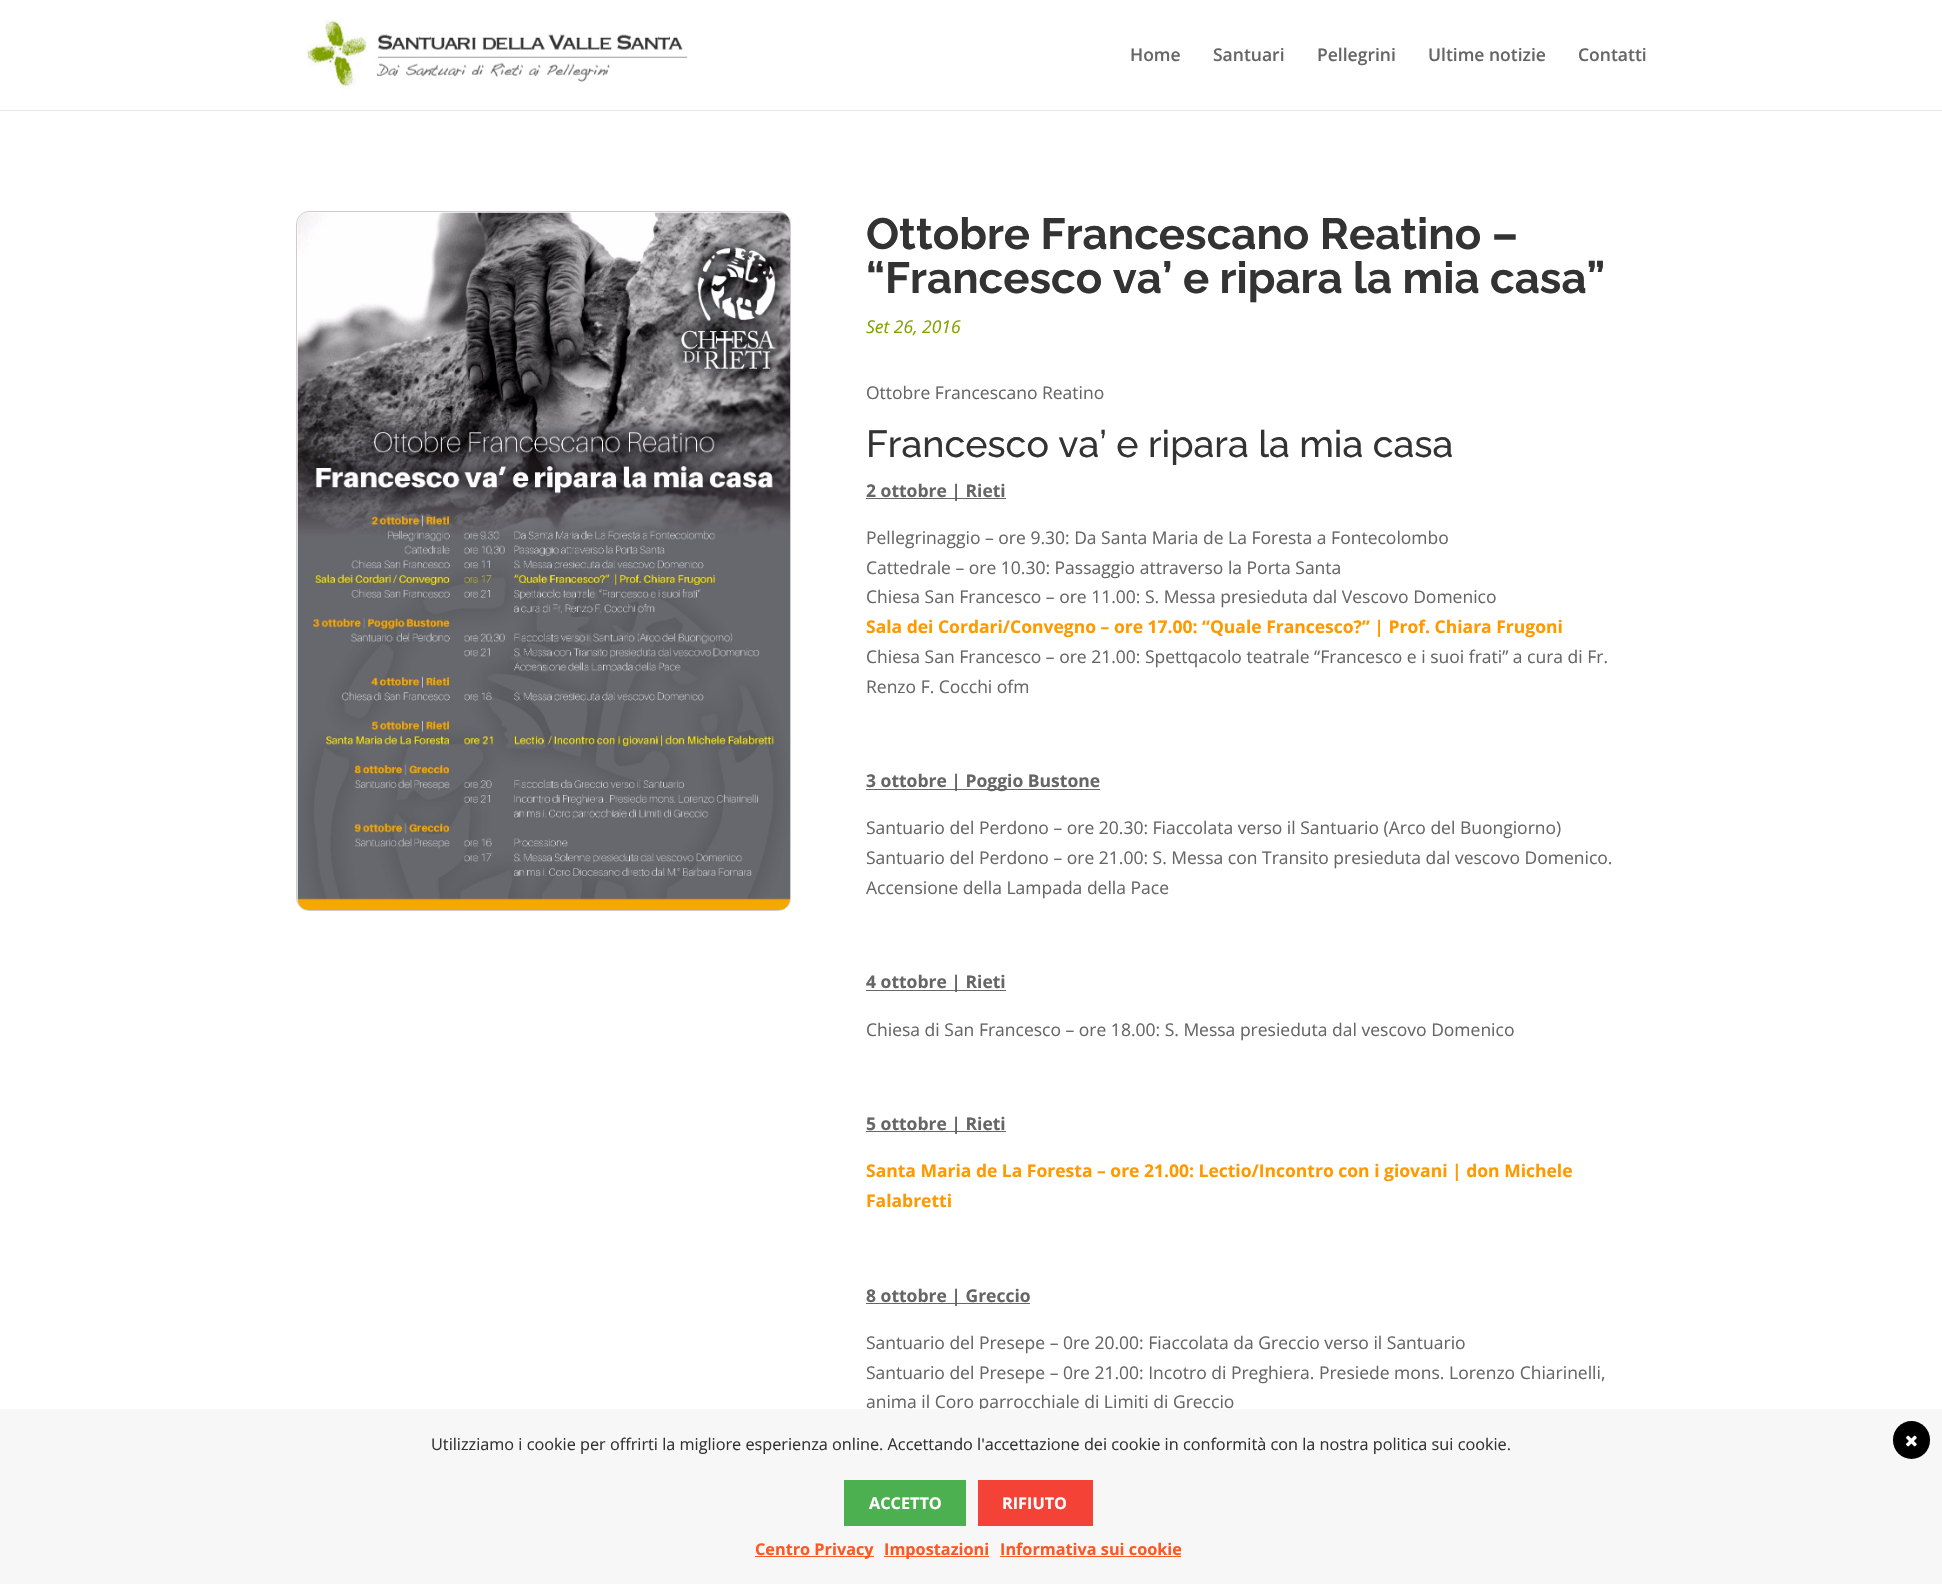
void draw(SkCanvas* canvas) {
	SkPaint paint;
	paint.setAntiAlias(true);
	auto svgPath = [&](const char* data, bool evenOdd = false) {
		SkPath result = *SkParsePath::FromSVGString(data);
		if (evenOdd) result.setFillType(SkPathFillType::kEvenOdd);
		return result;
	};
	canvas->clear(0xffffffff);
	paint.setColor(0xffe6e6e6);
	canvas->drawPath(svgPath("M0 110V111H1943V1H1942V110Z"), paint);
	canvas->drawImageRect(SkImages::DeferredFromEncodedData(SkData::MakeFromFileName("img1.png")), SkRect::MakeXYWH(305, 19, 383, 71), SkSamplingOptions());
	SkFont f1(fontMgr->matchFamilyStyle("Open Sans", SkFontStyle(600, SkFontStyle::kNormal_Width, SkFontStyle::kUpright_Slant)), 17.5);
	f1.setSubpixel(true);
	paint.setColor(0xff666666);
	canvas->drawString("Home", 1130, 61, f1, paint);
	canvas->drawString("Santuari", 1213, 61, f1, paint);
	canvas->drawString("Pellegrini", 1317, 61, f1, paint);
	canvas->drawString("Ultime notizie", 1428, 61, f1, paint);
	canvas->drawString("Contatti", 1578, 61, f1, paint);
	paint.setStroke(true);
	paint.setStrokeWidth(1);
	paint.setColor(0xffcccccc);
	canvas->drawRoundRect(SkRect::MakeXYWH(296.5, 211.5, 494, 699), 12.5, 12.5, paint);
	canvas->drawImageRect(SkImages::DeferredFromEncodedData(SkData::MakeFromFileName("img2.png")), SkRect::MakeXYWH(297, 212, 493, 698), SkSamplingOptions());
	SkFont f2(fontMgr->matchFamilyStyle("Raleway", SkFontStyle::Bold()), 43.75);
	f2.setSubpixel(true);
	paint.setStroke(false);
	paint.setColor(0xff333333);
	canvas->drawString("Ottobre Francescano Reatino –", 866, 249, f2, paint);
	canvas->drawString("“Francesco va’ e ripara la mia casa”", 866, 293, f2, paint);
	SkFont f3(fontMgr->matchFamilyStyle("Open Sans", SkFontStyle::Italic()), 17.5);
	f3.setSubpixel(true);
	paint.setColor(0xff82a100);
	canvas->drawString("Set 26, 2016", 866, 333, f3, paint);
	SkFont f4(fontMgr->matchFamilyStyle("Open Sans", SkFontStyle::Normal()), 17.5);
	f4.setSubpixel(true);
	paint.setColor(0xff666666);
	canvas->drawString("Ottobre Francescano Reatino", 866, 399, f4, paint);
	SkFont f5(fontMgr->matchFamilyStyle("Raleway", SkFontStyle(500, SkFontStyle::kNormal_Width, SkFontStyle::kUpright_Slant)), 37.5);
	f5.setSubpixel(true);
	paint.setColor(0xff333333);
	canvas->drawString("Francesco va’ e ripara la mia casa", 866, 457, f5, paint);
	paint.setColor(0xff666666);
	canvas->drawRect(SkRect::MakeXYWH(866, 498, 140, 1), paint);
	SkFont f6(fontMgr->matchFamilyStyle("Open Sans", SkFontStyle::Bold()), 17.5);
	f6.setSubpixel(true);
	canvas->drawString("2 ottobre | Rieti", 866, 497, f6, paint);
	canvas->drawString("Pellegrinaggio – ore 9.30: Da Santa Maria de La Foresta a Fontecolombo", 866, 544, f4, paint);
	canvas->drawString("Cattedrale – ore 10.30: Passaggio attraverso la Porta Santa", 866, 574, f4, paint);
	canvas->drawString("Chiesa San Francesco – ore 11.00: S. Messa presieduta dal Vescovo Domenico", 866, 603, f4, paint);
	paint.setColor(0xffff9900);
	canvas->drawString("Sala dei Cordari/Convegno – ore 17.00: “Quale Francesco?” | Prof. Chiara Frugoni", 866, 633, f6, paint);
	paint.setColor(0xff666666);
	canvas->drawString("Chiesa San Francesco – ore 21.00: Spettqacolo teatrale “Francesco e i suoi frati” a cura di Fr.", 866, 663, f4, paint);
	canvas->drawString("Renzo F. Cocchi ofm", 866, 693, f4, paint);
	canvas->drawRect(SkRect::MakeXYWH(866, 789, 234, 1), paint);
	canvas->drawString("3 ottobre | Poggio Bustone", 866, 787, f6, paint);
	canvas->drawString("Santuario del Perdono – ore 20.30: Fiaccolata verso il Santuario (Arco del Buongiorno)", 866, 834, f4, paint);
	canvas->drawString("Santuario del Perdono – ore 21.00: S. Messa con Transito presieduta dal vescovo Domenico.", 866, 864, f4, paint);
	canvas->drawString("Accensione della Lampada della Pace", 866, 894, f4, paint);
	canvas->drawRect(SkRect::MakeXYWH(866, 990, 140, 1), paint);
	canvas->drawString("4 ottobre | Rieti", 866, 988, f6, paint);
	canvas->drawString("Chiesa di San Francesco – ore 18.00: S. Messa presieduta dal vescovo Domenico", 866, 1036, f4, paint);
	canvas->drawRect(SkRect::MakeXYWH(866, 1131, 140, 1), paint);
	canvas->drawString("5 ottobre | Rieti", 866, 1130, f6, paint);
	paint.setColor(0xffff9900);
	canvas->drawString("Santa Maria de La Foresta – ore 21.00: Lectio/Incontro con i giovani | don Michele", 866, 1177, f6, paint);
	canvas->drawString("Falabretti", 866, 1207, f6, paint);
	paint.setColor(0xff666666);
	canvas->drawRect(SkRect::MakeXYWH(866, 1303, 164, 1), paint);
	canvas->drawString("8 ottobre | Greccio", 866, 1302, f6, paint);
	canvas->drawString("Santuario del Presepe – 0re 20.00: Fiaccolata da Greccio verso il Santuario", 866, 1349, f4, paint);
	canvas->drawString("Santuario del Presepe – 0re 21.00: Incotro di Preghiera. Presiede mons. Lorenzo Chiarinelli,", 866, 1379, f4, paint);
	canvas->drawString("anima il Coro parrocchiale di Limiti di Greccio", 866, 1408, f4, paint);
	paint.setColor(0xfff7f7f7);
	canvas->drawRect(SkRect::MakeXYWH(0, 1409, 1942, 175), paint);
	SkFont f7(fontMgr->matchFamilyStyle("Open Sans", SkFontStyle::Normal()), 16.25);
	f7.setSubpixel(true);
	paint.setColor(0xff333333);
	canvas->drawString("Utilizziamo i cookie per offrirti la migliore esperienza online. Accettando l'accettazione dei cookie in conformità con la nostra politica sui cookie.", 431, 1450, f7, paint);
	paint.setColor(0xff000000);
	canvas->drawRoundRect(SkRect::MakeXYWH(1893, 1421, 37, 38), 18.5, 18.5, paint);
	canvas->drawImageRect(SkImages::DeferredFromEncodedData(SkData::MakeFromFileName("img3.png")), SkRect::MakeXYWH(1906, 1435, 11, 12), SkSamplingOptions());
	paint.setColor(0xff4caf50);
	canvas->drawRect(SkRect::MakeXYWH(844, 1480, 122, 46), paint);
	SkFont f8(fontMgr->matchFamilyStyle("Open Sans", SkFontStyle::Bold()), 16.25);
	f8.setSubpixel(true);
	paint.setColor(0xffffffff);
	canvas->drawString("ACCETTO", 869, 1509, f8, paint);
	paint.setColor(0xfff44336);
	canvas->drawRect(SkRect::MakeXYWH(978, 1480, 115, 46), paint);
	paint.setColor(0xffffffff);
	canvas->drawString("RIFIUTO", 1002, 1509, f8, paint);
	paint.setColor(0xffff5722);
	canvas->drawRect(SkRect::MakeXYWH(755, 1556, 119, 1), paint);
	canvas->drawString("Centro Privacy", 755, 1555, f8, paint);
	canvas->drawRect(SkRect::MakeXYWH(884, 1556, 105, 1), paint);
	canvas->drawString("Impostazioni", 884, 1555, f8, paint);
	canvas->drawString("Informativa sui cookie", 1000, 1555, f8, paint);
	canvas->drawRect(SkRect::MakeXYWH(1000, 1556, 181, 1), paint);
}
